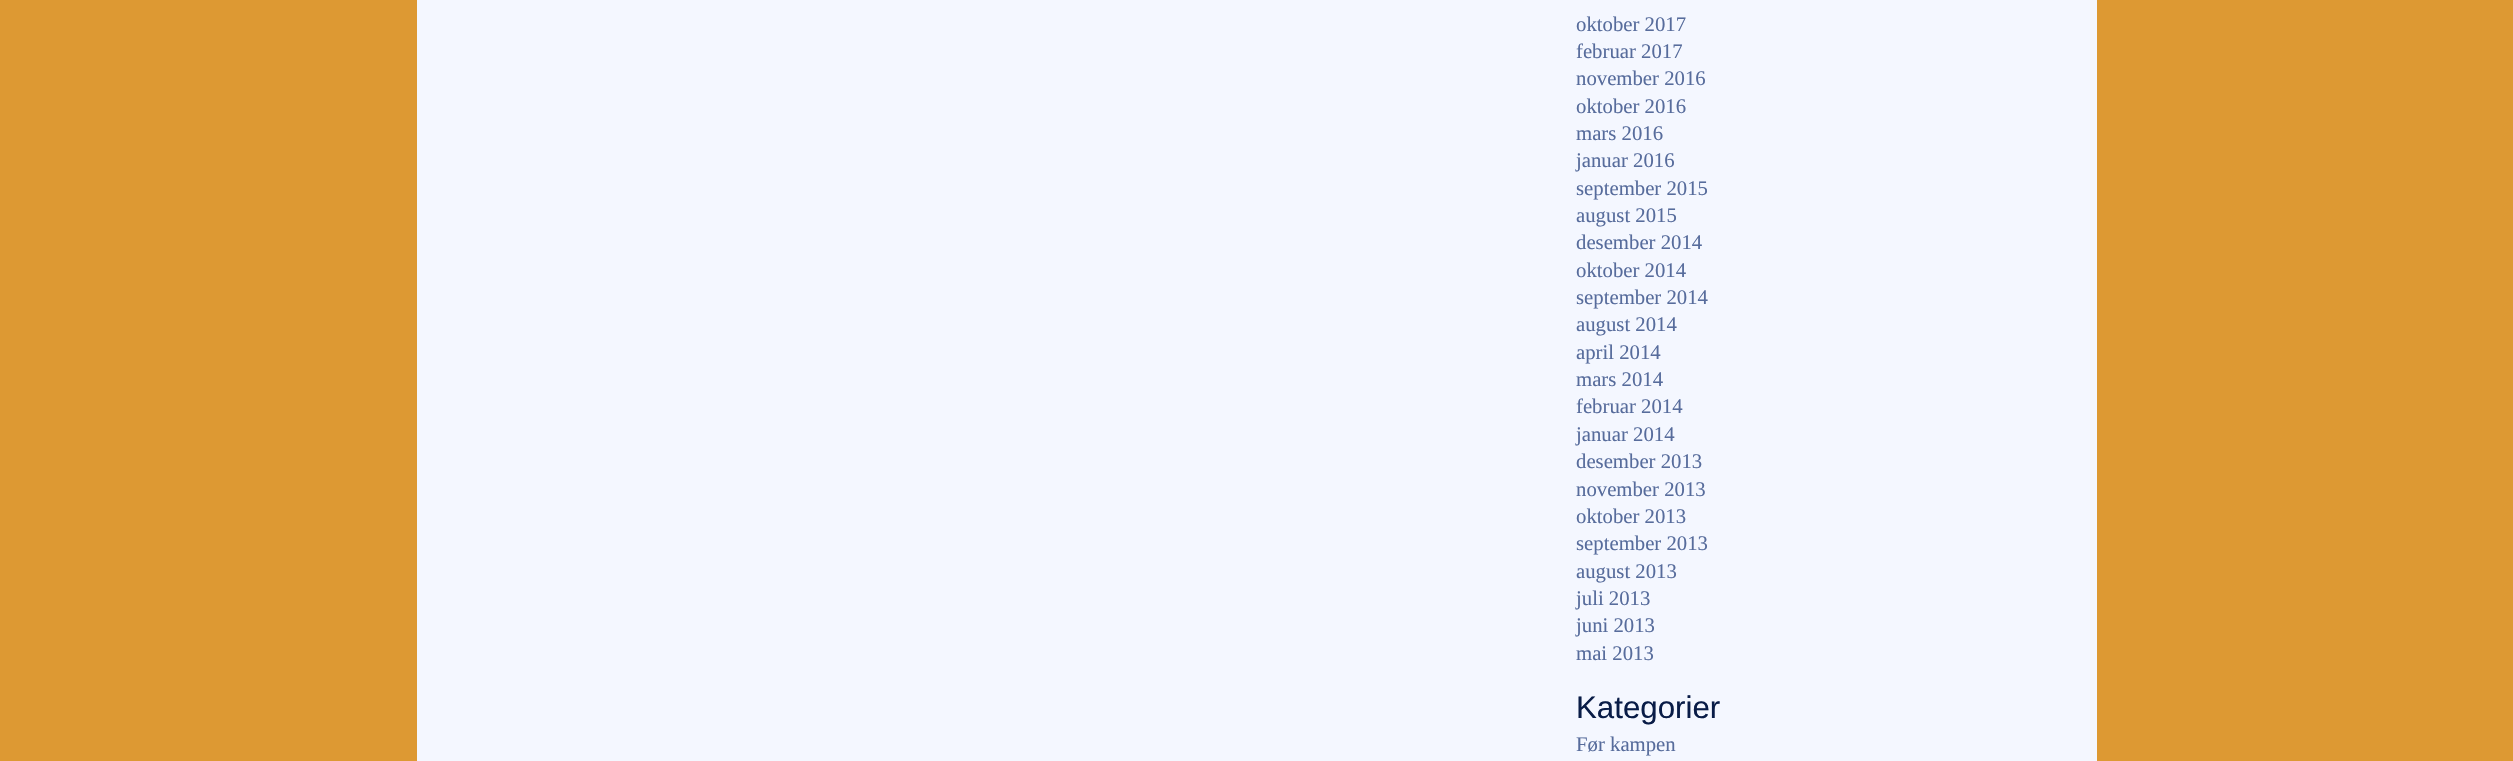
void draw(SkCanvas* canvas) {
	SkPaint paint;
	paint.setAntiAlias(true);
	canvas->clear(0xffdd9933);
	paint.setColor(0xfff4f7ff);
	canvas->drawRect(SkRect::MakeXYWH(417, 0, 1680, 761), paint);
	SkFont f1(fontMgr->matchFamilyStyle("Liberation Serif", SkFontStyle::Normal()), 20.75);
	f1.setSubpixel(true);
	paint.setColor(0xff576c9c);
	canvas->drawString("oktober 2017", 1576, 31, f1, paint);
	canvas->drawString("februar 2017", 1576, 58, f1, paint);
	canvas->drawString("november 2016", 1576, 85, f1, paint);
	canvas->drawString("oktober 2016", 1576, 113, f1, paint);
	canvas->drawString("mars 2016", 1576, 140, f1, paint);
	canvas->drawString("januar 2016", 1576, 167, f1, paint);
	canvas->drawString("september 2015", 1576, 195, f1, paint);
	canvas->drawString("august 2015", 1576, 222, f1, paint);
	canvas->drawString("desember 2014", 1576, 249, f1, paint);
	canvas->drawString("oktober 2014", 1576, 277, f1, paint);
	canvas->drawString("september 2014", 1576, 304, f1, paint);
	canvas->drawString("august 2014", 1576, 331, f1, paint);
	canvas->drawString("april 2014", 1576, 359, f1, paint);
	canvas->drawString("mars 2014", 1576, 386, f1, paint);
	canvas->drawString("februar 2014", 1576, 413, f1, paint);
	canvas->drawString("januar 2014", 1576, 441, f1, paint);
	canvas->drawString("desember 2013", 1576, 468, f1, paint);
	canvas->drawString("november 2013", 1576, 496, f1, paint);
	canvas->drawString("oktober 2013", 1576, 523, f1, paint);
	canvas->drawString("september 2013", 1576, 550, f1, paint);
	canvas->drawString("august 2013", 1576, 578, f1, paint);
	canvas->drawString("juli 2013", 1576, 605, f1, paint);
	canvas->drawString("juni 2013", 1576, 632, f1, paint);
	canvas->drawString("mai 2013", 1576, 660, f1, paint);
	SkFont f2(fontMgr->matchFamilyStyle("Liberation Sans", SkFontStyle::Normal()), 31.25);
	f2.setSubpixel(true);
	paint.setColor(0xff091c47);
	canvas->drawString("Kategorier", 1576, 718, f2, paint);
	paint.setColor(0xff576c9c);
	canvas->drawString("Før kampen", 1576, 751, f1, paint);
}
